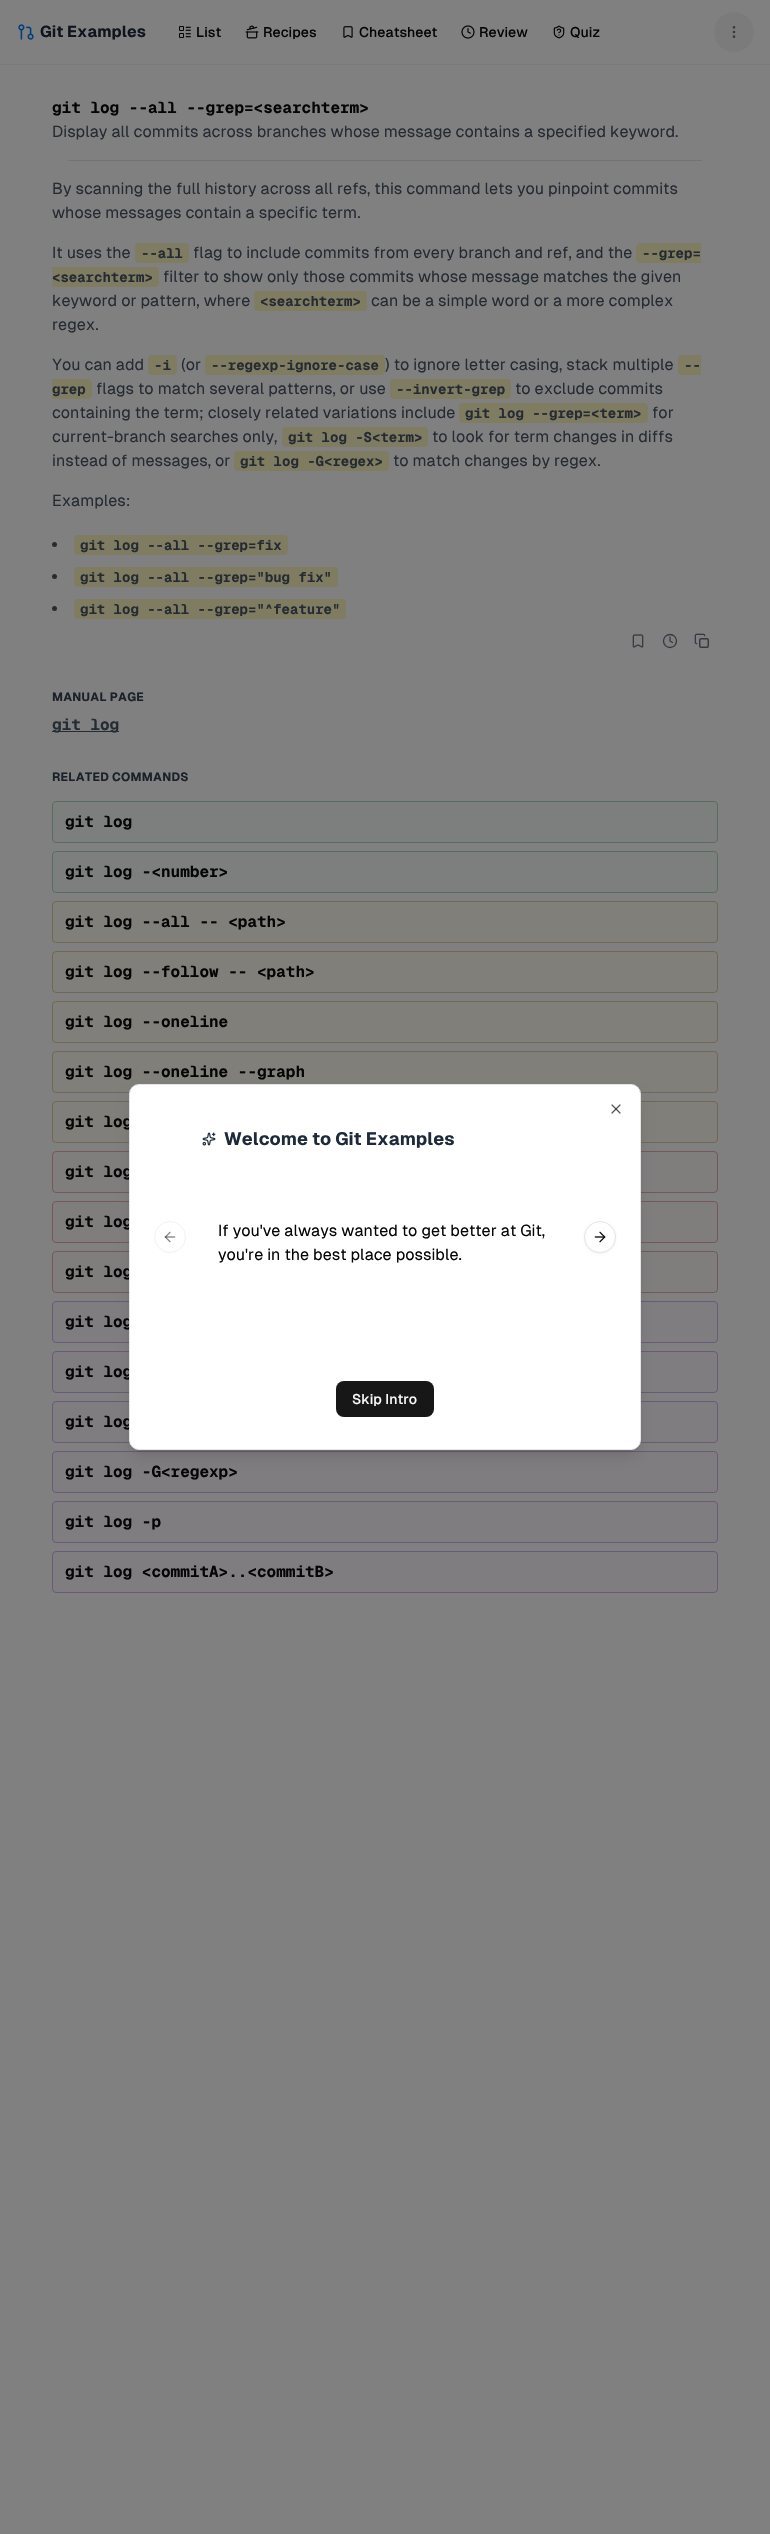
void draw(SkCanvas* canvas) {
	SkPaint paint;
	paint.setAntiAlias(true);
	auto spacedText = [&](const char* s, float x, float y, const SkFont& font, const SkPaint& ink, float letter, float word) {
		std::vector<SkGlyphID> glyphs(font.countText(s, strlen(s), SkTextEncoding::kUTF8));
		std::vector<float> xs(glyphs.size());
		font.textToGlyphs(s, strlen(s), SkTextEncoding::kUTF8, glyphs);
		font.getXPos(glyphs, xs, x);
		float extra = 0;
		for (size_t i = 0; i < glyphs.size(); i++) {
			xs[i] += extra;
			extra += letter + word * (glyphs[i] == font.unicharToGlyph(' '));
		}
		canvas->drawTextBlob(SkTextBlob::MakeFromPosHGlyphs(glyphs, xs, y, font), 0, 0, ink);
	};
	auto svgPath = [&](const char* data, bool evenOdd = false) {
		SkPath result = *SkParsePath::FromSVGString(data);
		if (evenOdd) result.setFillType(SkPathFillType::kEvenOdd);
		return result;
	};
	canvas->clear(0xff808080);
	paint.setColor(0xff7a7a7b);
	canvas->drawRect(SkRect::MakeXYWH(0, 64, 770, 1), paint);
	canvas->drawImageRect(SkImages::DeferredFromEncodedData(SkData::MakeFromFileName("img1.png")), SkRect::MakeXYWH(18, 24, 16, 16), SkSamplingOptions());
	SkFont f1(fontMgr->matchFamilyStyle("Geist", SkFontStyle::Bold()), 16);
	f1.setSubpixel(true);
	paint.setColor(0xff0f151d);
	canvas->drawString("Git Examples", 40, 37, f1, paint);
	canvas->drawImageRect(SkImages::DeferredFromEncodedData(SkData::MakeFromFileName("img2.png")), SkRect::MakeXYWH(179, 26, 12, 12), SkSamplingOptions());
	SkFont f2(fontMgr->matchFamilyStyle("Geist", SkFontStyle(500, SkFontStyle::kNormal_Width, SkFontStyle::kUpright_Slant)), 14);
	f2.setSubpixel(true);
	paint.setColor(0xff050505);
	canvas->drawString("List", 196, 37, f2, paint);
	canvas->drawImageRect(SkImages::DeferredFromEncodedData(SkData::MakeFromFileName("img3.png")), SkRect::MakeXYWH(245, 25, 14, 14), SkSamplingOptions());
	canvas->drawString("Recipes", 263, 37, f2, paint);
	canvas->drawImageRect(SkImages::DeferredFromEncodedData(SkData::MakeFromFileName("img4.png")), SkRect::MakeXYWH(343, 26, 10, 12), SkSamplingOptions());
	canvas->drawString("Cheatsheet", 359, 37, f2, paint);
	canvas->drawImageRect(SkImages::DeferredFromEncodedData(SkData::MakeFromFileName("img5.png")), SkRect::MakeXYWH(461, 25, 14, 14), SkSamplingOptions());
	canvas->drawString("Review", 479, 37, f2, paint);
	canvas->drawImageRect(SkImages::DeferredFromEncodedData(SkData::MakeFromFileName("img6.png")), SkRect::MakeXYWH(553, 25, 12, 14), SkSamplingOptions());
	canvas->drawString("Quiz", 570, 37, f2, paint);
	paint.setColor(0xff7b7b7b);
	canvas->drawCircle(734, 32, 20, paint);
	paint.setStroke(true);
	paint.setStrokeWidth(1.3);
	paint.setColor(0xff3a3a3a);
	canvas->drawCircle(734, 32, 0.7, paint);
	canvas->drawCircle(734, 27.3, 0.7, paint);
	canvas->drawCircle(734, 36.7, 0.7, paint);
	SkFont f3(fontMgr->matchFamilyStyle("Geist Mono", SkFontStyle::Bold()), 16);
	f3.setSubpixel(true);
	paint.setStroke(false);
	paint.setColor(0xff050505);
	canvas->drawString("git log --all --grep=<searchterm>", 52, 113, f3, paint);
	SkFont f4(fontMgr->matchFamilyStyle("Geist", SkFontStyle::Normal()), 16);
	f4.setSubpixel(true);
	paint.setColor(0xff252b33);
	canvas->drawString("Display all commits across branches whose message contains a specified keyword.", 52, 137, f4, paint);
	paint.setColor(0xff737373);
	canvas->drawRect(SkRect::MakeXYWH(68, 160, 634, 1), paint);
	paint.setColor(0xff252b33);
	canvas->drawString("By scanning the full history across all refs, this command lets you pinpoint commits", 52, 194, f4, paint);
	canvas->drawString("whose messages contain a specific term.", 52, 218, f4, paint);
	canvas->drawString("It uses the", 52, 258, f4, paint);
	paint.setColor(0xff807c61);
	canvas->drawRoundRect(SkRect::MakeXYWH(135, 243, 54, 20), 4, 4, paint);
	SkFont f5(fontMgr->matchFamilyStyle("Geist Mono", SkFontStyle::Bold()), 14);
	f5.setSubpixel(true);
	paint.setColor(0xff252b33);
	canvas->drawString("--all", 141, 258, f5, paint);
	canvas->drawString("flag to include commits from every branch and ref, and the", 193, 258, f4, paint);
	paint.setColor(0xff807c61);
	canvas->drawPath(svgPath("M640 243H701V263H640C638 263 636 261 636 259V247C636 245 638 243 640 243Z"), paint);
	paint.setColor(0xff252b33);
	canvas->drawString("--grep=", 642, 258, f5, paint);
	paint.setColor(0xff807c61);
	canvas->drawPath(svgPath("M52 267H155C157 267 159 269 159 271V283C159 285 157 287 155 287H52Z"), paint);
	paint.setColor(0xff252b33);
	canvas->drawString("<searchterm>", 52, 282, f5, paint);
	canvas->drawString("filter to show only those commits whose message matches the given", 163, 282, f4, paint);
	canvas->drawString("keyword or pattern, where", 52, 306, f4, paint);
	paint.setColor(0xff807c61);
	canvas->drawRoundRect(SkRect::MakeXYWH(254, 291, 113, 20), 4, 4, paint);
	paint.setColor(0xff252b33);
	canvas->drawString("<searchterm>", 260, 306, f5, paint);
	canvas->drawString("can be a simple word or a more complex", 371, 306, f4, paint);
	canvas->drawString("regex.", 52, 330, f4, paint);
	canvas->drawString("You can add", 52, 370, f4, paint);
	paint.setColor(0xff807c61);
	canvas->drawRoundRect(SkRect::MakeXYWH(148, 355, 29, 20), 4, 4, paint);
	paint.setColor(0xff252b33);
	canvas->drawString("-i", 154, 370, f5, paint);
	canvas->drawString("(or", 181, 370, f4, paint);
	paint.setColor(0xff807c61);
	canvas->drawRoundRect(SkRect::MakeXYWH(205, 355, 180, 20), 4, 4, paint);
	paint.setColor(0xff252b33);
	canvas->drawString("--regexp-ignore-case", 211, 370, f5, paint);
	canvas->drawString(") to ignore letter casing, stack multiple", 385, 370, f4, paint);
	paint.setColor(0xff807c61);
	canvas->drawPath(svgPath("M682 355H701V375H682C680 375 678 373 678 371V359C678 357 680 355 682 355Z"), paint);
	paint.setColor(0xff252b33);
	canvas->drawString("--", 684, 370, f5, paint);
	paint.setColor(0xff807c61);
	canvas->drawPath(svgPath("M52 379H88C90 379 92 381 92 383V395C92 397 90 399 88 399H52Z"), paint);
	paint.setColor(0xff252b33);
	canvas->drawString("grep", 52, 394, f5, paint);
	canvas->drawString("flags to match several patterns, or use", 96, 394, f4, paint);
	paint.setColor(0xff807c61);
	canvas->drawRoundRect(SkRect::MakeXYWH(390, 379, 121, 20), 4, 4, paint);
	paint.setColor(0xff252b33);
	canvas->drawString("--invert-grep", 396, 394, f5, paint);
	canvas->drawString("to exclude commits", 515, 394, f4, paint);
	canvas->drawString("containing the term; closely related variations include", 52, 418, f4, paint);
	paint.setColor(0xff807c61);
	canvas->drawRoundRect(SkRect::MakeXYWH(459, 403, 189, 20), 4, 4, paint);
	paint.setColor(0xff252b33);
	canvas->drawString("git log --grep=<term>", 465, 418, f5, paint);
	canvas->drawString("for", 652, 418, f4, paint);
	canvas->drawString("current-branch searches only,", 52, 442, f4, paint);
	paint.setColor(0xff807c61);
	canvas->drawRoundRect(SkRect::MakeXYWH(282, 427, 146, 20), 4, 4, paint);
	paint.setColor(0xff252b33);
	canvas->drawString("git log -S<term>", 288, 442, f5, paint);
	canvas->drawString("to look for term changes in diffs", 432, 442, f4, paint);
	canvas->drawString("instead of messages, or", 52, 466, f4, paint);
	paint.setColor(0xff807c61);
	canvas->drawRoundRect(SkRect::MakeXYWH(234, 451, 155, 20), 4, 4, paint);
	paint.setColor(0xff252b33);
	canvas->drawString("git log -G<regex>", 240, 466, f5, paint);
	canvas->drawString("to match changes by regex.", 393, 466, f4, paint);
	canvas->drawString("Examples:", 52, 506, f4, paint);
	canvas->drawCircle(54.5, 544.5, 2.5, paint);
	paint.setColor(0xff807c61);
	canvas->drawRoundRect(SkRect::MakeXYWH(74, 535, 214, 20), 4, 4, paint);
	paint.setColor(0xff252b33);
	canvas->drawString("git log --all --grep=fix", 80, 550, f5, paint);
	canvas->drawCircle(54.5, 576.5, 2.5, paint);
	paint.setColor(0xff807c61);
	canvas->drawRoundRect(SkRect::MakeXYWH(74, 567, 264, 20), 4, 4, paint);
	paint.setColor(0xff252b33);
	canvas->drawString("git log --all --grep=\"bug fix\"", 80, 582, f5, paint);
	canvas->drawCircle(54.5, 608.5, 2.5, paint);
	paint.setColor(0xff807c61);
	canvas->drawRoundRect(SkRect::MakeXYWH(74, 599, 272, 20), 4, 4, paint);
	paint.setColor(0xff252b33);
	canvas->drawString("git log --all --grep=\"^feature\"", 80, 614, f5, paint);
	canvas->drawImageRect(SkImages::DeferredFromEncodedData(SkData::MakeFromFileName("img7.png")), SkRect::MakeXYWH(632, 634, 12, 14), SkSamplingOptions());
	paint.setStroke(true);
	paint.setStrokeCap(SkPaint::kRound_Cap);
	paint.setStrokeJoin(SkPaint::kRound_Join);
	paint.setColor(0xff353941);
	canvas->drawPath(svgPath("M670 637V641L672.5 642.5"), paint);
	paint.setStrokeCap(SkPaint::kButt_Cap);
	paint.setStrokeJoin(SkPaint::kMiter_Join);
	canvas->drawCircle(670, 641, 6.5, paint);
	canvas->drawImageRect(SkImages::DeferredFromEncodedData(SkData::MakeFromFileName("img8.png")), SkRect::MakeXYWH(694, 633, 15, 15), SkSamplingOptions());
	SkFont f6(fontMgr->matchFamilyStyle("Geist", SkFontStyle::Bold()), 12);
	f6.setSubpixel(true);
	paint.setStroke(false);
	paint.setColor(0xff1b212a);
	spacedText("MANUAL PAGE", 52, 701, f6, paint, 0.25, 0);
	paint.setColor(0xff252b33);
	canvas->drawRect(SkRect::MakeXYWH(52, 731, 67, 1), paint);
	canvas->drawString("git log", 52, 730, f3, paint);
	paint.setColor(0xff1b212a);
	spacedText("RELATED COMMANDS", 52, 781, f6, paint, 0.25, 0);
	paint.setColor(0xff7c7f7d);
	canvas->drawRoundRect(SkRect::MakeXYWH(52.5, 801.5, 665, 41), 3.5, 3.5, paint);
	paint.setStroke(true);
	paint.setStrokeWidth(1);
	paint.setColor(0xff576d60);
	canvas->drawRoundRect(SkRect::MakeXYWH(52.5, 801.5, 665, 41), 3.5, 3.5, paint);
	paint.setStroke(false);
	paint.setColor(0xff050505);
	canvas->drawString("git log", 65, 827, f3, paint);
	paint.setColor(0xff7c7f7d);
	canvas->drawRoundRect(SkRect::MakeXYWH(52.5, 851.5, 665, 41), 3.5, 3.5, paint);
	paint.setStroke(true);
	paint.setColor(0xff576d60);
	canvas->drawRoundRect(SkRect::MakeXYWH(52.5, 851.5, 665, 41), 3.5, 3.5, paint);
	paint.setStroke(false);
	paint.setColor(0xff050505);
	canvas->drawString("git log -<number>", 65, 877, f3, paint);
	paint.setColor(0xff807f7a);
	canvas->drawRoundRect(SkRect::MakeXYWH(52, 901, 666, 42), 4, 4, paint);
	paint.setStroke(true);
	paint.setColor(0x4d533000);
	canvas->drawRoundRect(SkRect::MakeXYWH(52.5, 901.5, 665, 41), 3.5, 3.5, paint);
	paint.setStroke(false);
	paint.setColor(0xff050505);
	canvas->drawString("git log --all -- <path>", 65, 927, f3, paint);
	paint.setColor(0xff807f7a);
	canvas->drawRoundRect(SkRect::MakeXYWH(52, 951, 666, 42), 4, 4, paint);
	paint.setStroke(true);
	paint.setColor(0x4d533000);
	canvas->drawRoundRect(SkRect::MakeXYWH(52.5, 951.5, 665, 41), 3.5, 3.5, paint);
	paint.setStroke(false);
	paint.setColor(0xff050505);
	canvas->drawString("git log --follow -- <path>", 65, 977, f3, paint);
	paint.setColor(0xff807f7a);
	canvas->drawRoundRect(SkRect::MakeXYWH(52, 1001, 666, 42), 4, 4, paint);
	paint.setStroke(true);
	paint.setColor(0x4d533000);
	canvas->drawRoundRect(SkRect::MakeXYWH(52.5, 1001.5, 665, 41), 3.5, 3.5, paint);
	paint.setStroke(false);
	paint.setColor(0xff050505);
	canvas->drawString("git log --oneline", 65, 1027, f3, paint);
	paint.setColor(0xff807f7a);
	canvas->drawRoundRect(SkRect::MakeXYWH(52, 1051, 666, 42), 4, 4, paint);
	paint.setStroke(true);
	paint.setColor(0x4d533000);
	canvas->drawRoundRect(SkRect::MakeXYWH(52.5, 1051.5, 665, 41), 3.5, 3.5, paint);
	paint.setStroke(false);
	paint.setColor(0xff050505);
	canvas->drawString("git log --oneline --graph", 65, 1077, f3, paint);
	paint.setColor(0xff807f7a);
	canvas->drawRoundRect(SkRect::MakeXYWH(52, 1101, 666, 42), 4, 4, paint);
	paint.setStroke(true);
	paint.setColor(0x4d533000);
	canvas->drawRoundRect(SkRect::MakeXYWH(52.5, 1101.5, 665, 41), 3.5, 3.5, paint);
	paint.setStroke(false);
	paint.setColor(0xff050505);
	canvas->drawString("git log", 65, 1127, f3, paint);
	paint.setColor(0xff807d7d);
	canvas->drawRoundRect(SkRect::MakeXYWH(52.5, 1151.5, 665, 41), 3.5, 3.5, paint);
	paint.setStroke(true);
	paint.setColor(0xff765758);
	canvas->drawRoundRect(SkRect::MakeXYWH(52.5, 1151.5, 665, 41), 3.5, 3.5, paint);
	paint.setStroke(false);
	paint.setColor(0xff050505);
	canvas->drawString("git log", 65, 1177, f3, paint);
	paint.setColor(0xff807d7d);
	canvas->drawRoundRect(SkRect::MakeXYWH(52.5, 1201.5, 665, 41), 3.5, 3.5, paint);
	paint.setStroke(true);
	paint.setColor(0xff765758);
	canvas->drawRoundRect(SkRect::MakeXYWH(52.5, 1201.5, 665, 41), 3.5, 3.5, paint);
	paint.setStroke(false);
	paint.setColor(0xff050505);
	canvas->drawString("git log", 65, 1227, f3, paint);
	paint.setColor(0xff807d7d);
	canvas->drawRoundRect(SkRect::MakeXYWH(52.5, 1251.5, 665, 41), 3.5, 3.5, paint);
	paint.setStroke(true);
	paint.setColor(0xff765758);
	canvas->drawRoundRect(SkRect::MakeXYWH(52.5, 1251.5, 665, 41), 3.5, 3.5, paint);
	paint.setStroke(false);
	paint.setColor(0xff050505);
	canvas->drawString("git log", 65, 1277, f3, paint);
	paint.setColor(0xff7f7d80);
	canvas->drawRoundRect(SkRect::MakeXYWH(52.5, 1301.5, 665, 41), 3.5, 3.5, paint);
	paint.setStroke(true);
	paint.setColor(0xff6c587a);
	canvas->drawRoundRect(SkRect::MakeXYWH(52.5, 1301.5, 665, 41), 3.5, 3.5, paint);
	paint.setStroke(false);
	paint.setColor(0xff050505);
	canvas->drawString("git log", 65, 1327, f3, paint);
	paint.setColor(0xff7f7d80);
	canvas->drawRoundRect(SkRect::MakeXYWH(52.5, 1351.5, 665, 41), 3.5, 3.5, paint);
	paint.setStroke(true);
	paint.setColor(0xff6c587a);
	canvas->drawRoundRect(SkRect::MakeXYWH(52.5, 1351.5, 665, 41), 3.5, 3.5, paint);
	paint.setStroke(false);
	paint.setColor(0xff050505);
	canvas->drawString("git log", 65, 1377, f3, paint);
	paint.setColor(0xff7f7d80);
	canvas->drawRoundRect(SkRect::MakeXYWH(52.5, 1401.5, 665, 41), 3.5, 3.5, paint);
	paint.setStroke(true);
	paint.setColor(0xff6c587a);
	canvas->drawRoundRect(SkRect::MakeXYWH(52.5, 1401.5, 665, 41), 3.5, 3.5, paint);
	paint.setStroke(false);
	paint.setColor(0xff050505);
	canvas->drawString("git log", 65, 1427, f3, paint);
	paint.setColor(0xff7f7d80);
	canvas->drawRoundRect(SkRect::MakeXYWH(52.5, 1451.5, 665, 41), 3.5, 3.5, paint);
	paint.setStroke(true);
	paint.setColor(0xff6c587a);
	canvas->drawRoundRect(SkRect::MakeXYWH(52.5, 1451.5, 665, 41), 3.5, 3.5, paint);
	paint.setStroke(false);
	paint.setColor(0xff050505);
	canvas->drawString("git log -G<regexp>", 65, 1477, f3, paint);
	paint.setColor(0xff7f7d80);
	canvas->drawRoundRect(SkRect::MakeXYWH(52.5, 1501.5, 665, 41), 3.5, 3.5, paint);
	paint.setStroke(true);
	paint.setColor(0xff6c587a);
	canvas->drawRoundRect(SkRect::MakeXYWH(52.5, 1501.5, 665, 41), 3.5, 3.5, paint);
	paint.setStroke(false);
	paint.setColor(0xff050505);
	canvas->drawString("git log -p", 65, 1527, f3, paint);
	paint.setColor(0xff7f7d80);
	canvas->drawRoundRect(SkRect::MakeXYWH(52.5, 1551.5, 665, 41), 3.5, 3.5, paint);
	paint.setStroke(true);
	paint.setColor(0xff6c587a);
	canvas->drawRoundRect(SkRect::MakeXYWH(52.5, 1551.5, 665, 41), 3.5, 3.5, paint);
	paint.setStroke(false);
	paint.setColor(0xff050505);
	canvas->drawString("git log <commitA>..<commitB>", 65, 1577, f3, paint);
	paint.setColor(0x1a000000);
	paint.setMaskFilter(SkMaskFilter::MakeBlur(kNormal_SkBlurStyle, 3));
	canvas->drawRoundRect(SkRect::MakeXYWH(133, 1092, 504, 358), 6, 6, paint);
	paint.setMaskFilter(nullptr);
	paint.setMaskFilter(SkMaskFilter::MakeBlur(kNormal_SkBlurStyle, 7.5));
	canvas->drawRoundRect(SkRect::MakeXYWH(132, 1097, 506, 360), 7, 7, paint);
	paint.setMaskFilter(nullptr);
	paint.setColor(0xffffffff);
	canvas->drawRoundRect(SkRect::MakeXYWH(129.5, 1084.5, 511, 365), 9.5, 9.5, paint);
	paint.setStroke(true);
	paint.setColor(0xffe5e5e5);
	canvas->drawRoundRect(SkRect::MakeXYWH(129.5, 1084.5, 511, 365), 9.5, 9.5, paint);
	canvas->drawImageRect(SkImages::DeferredFromEncodedData(SkData::MakeFromFileName("img9.png")), SkRect::MakeXYWH(611, 1104, 10, 10), SkSamplingOptions());
	paint.setColor(0xfff2f2f2);
	canvas->drawCircle(170, 1237, 15.5, paint);
	canvas->drawImageRect(SkImages::DeferredFromEncodedData(SkData::MakeFromFileName("img10.png")), SkRect::MakeXYWH(164, 1231, 12, 12), SkSamplingOptions());
	canvas->drawImageRect(SkImages::DeferredFromEncodedData(SkData::MakeFromFileName("img11.png")), SkRect::MakeXYWH(202, 1132, 14, 14), SkSamplingOptions());
	SkFont f7(fontMgr->matchFamilyStyle("Geist", SkFontStyle::Bold()), 18);
	f7.setSubpixel(true);
	paint.setStroke(false);
	paint.setColor(0xff1e2939);
	canvas->drawString("Welcome to Git Examples", 224, 1145, f7, paint);
	paint.setColor(0xff050505);
	canvas->drawString("If you've always wanted to get better at Git,", 218, 1236, f4, paint);
	canvas->drawString("you're in the best place possible.", 218, 1260, f4, paint);
	paint.setColor(0x0d000000);
	paint.setMaskFilter(SkMaskFilter::MakeBlur(kNormal_SkBlurStyle, 1));
	canvas->drawRoundRect(SkRect::MakeXYWH(584, 1222, 32, 32), 16, 16, paint);
	paint.setMaskFilter(nullptr);
	paint.setColor(0xffffffff);
	canvas->drawCircle(600, 1237, 15.5, paint);
	paint.setStroke(true);
	paint.setColor(0xffe5e5e5);
	canvas->drawCircle(600, 1237, 15.5, paint);
	canvas->drawImageRect(SkImages::DeferredFromEncodedData(SkData::MakeFromFileName("img12.png")), SkRect::MakeXYWH(594, 1231, 12, 12), SkSamplingOptions());
	paint.setStroke(false);
	paint.setColor(0xff171717);
	canvas->drawRoundRect(SkRect::MakeXYWH(336, 1381, 98, 36), 8, 8, paint);
	paint.setColor(0xfffafafa);
	canvas->drawString("Skip Intro", 352, 1404, f2, paint);
}
